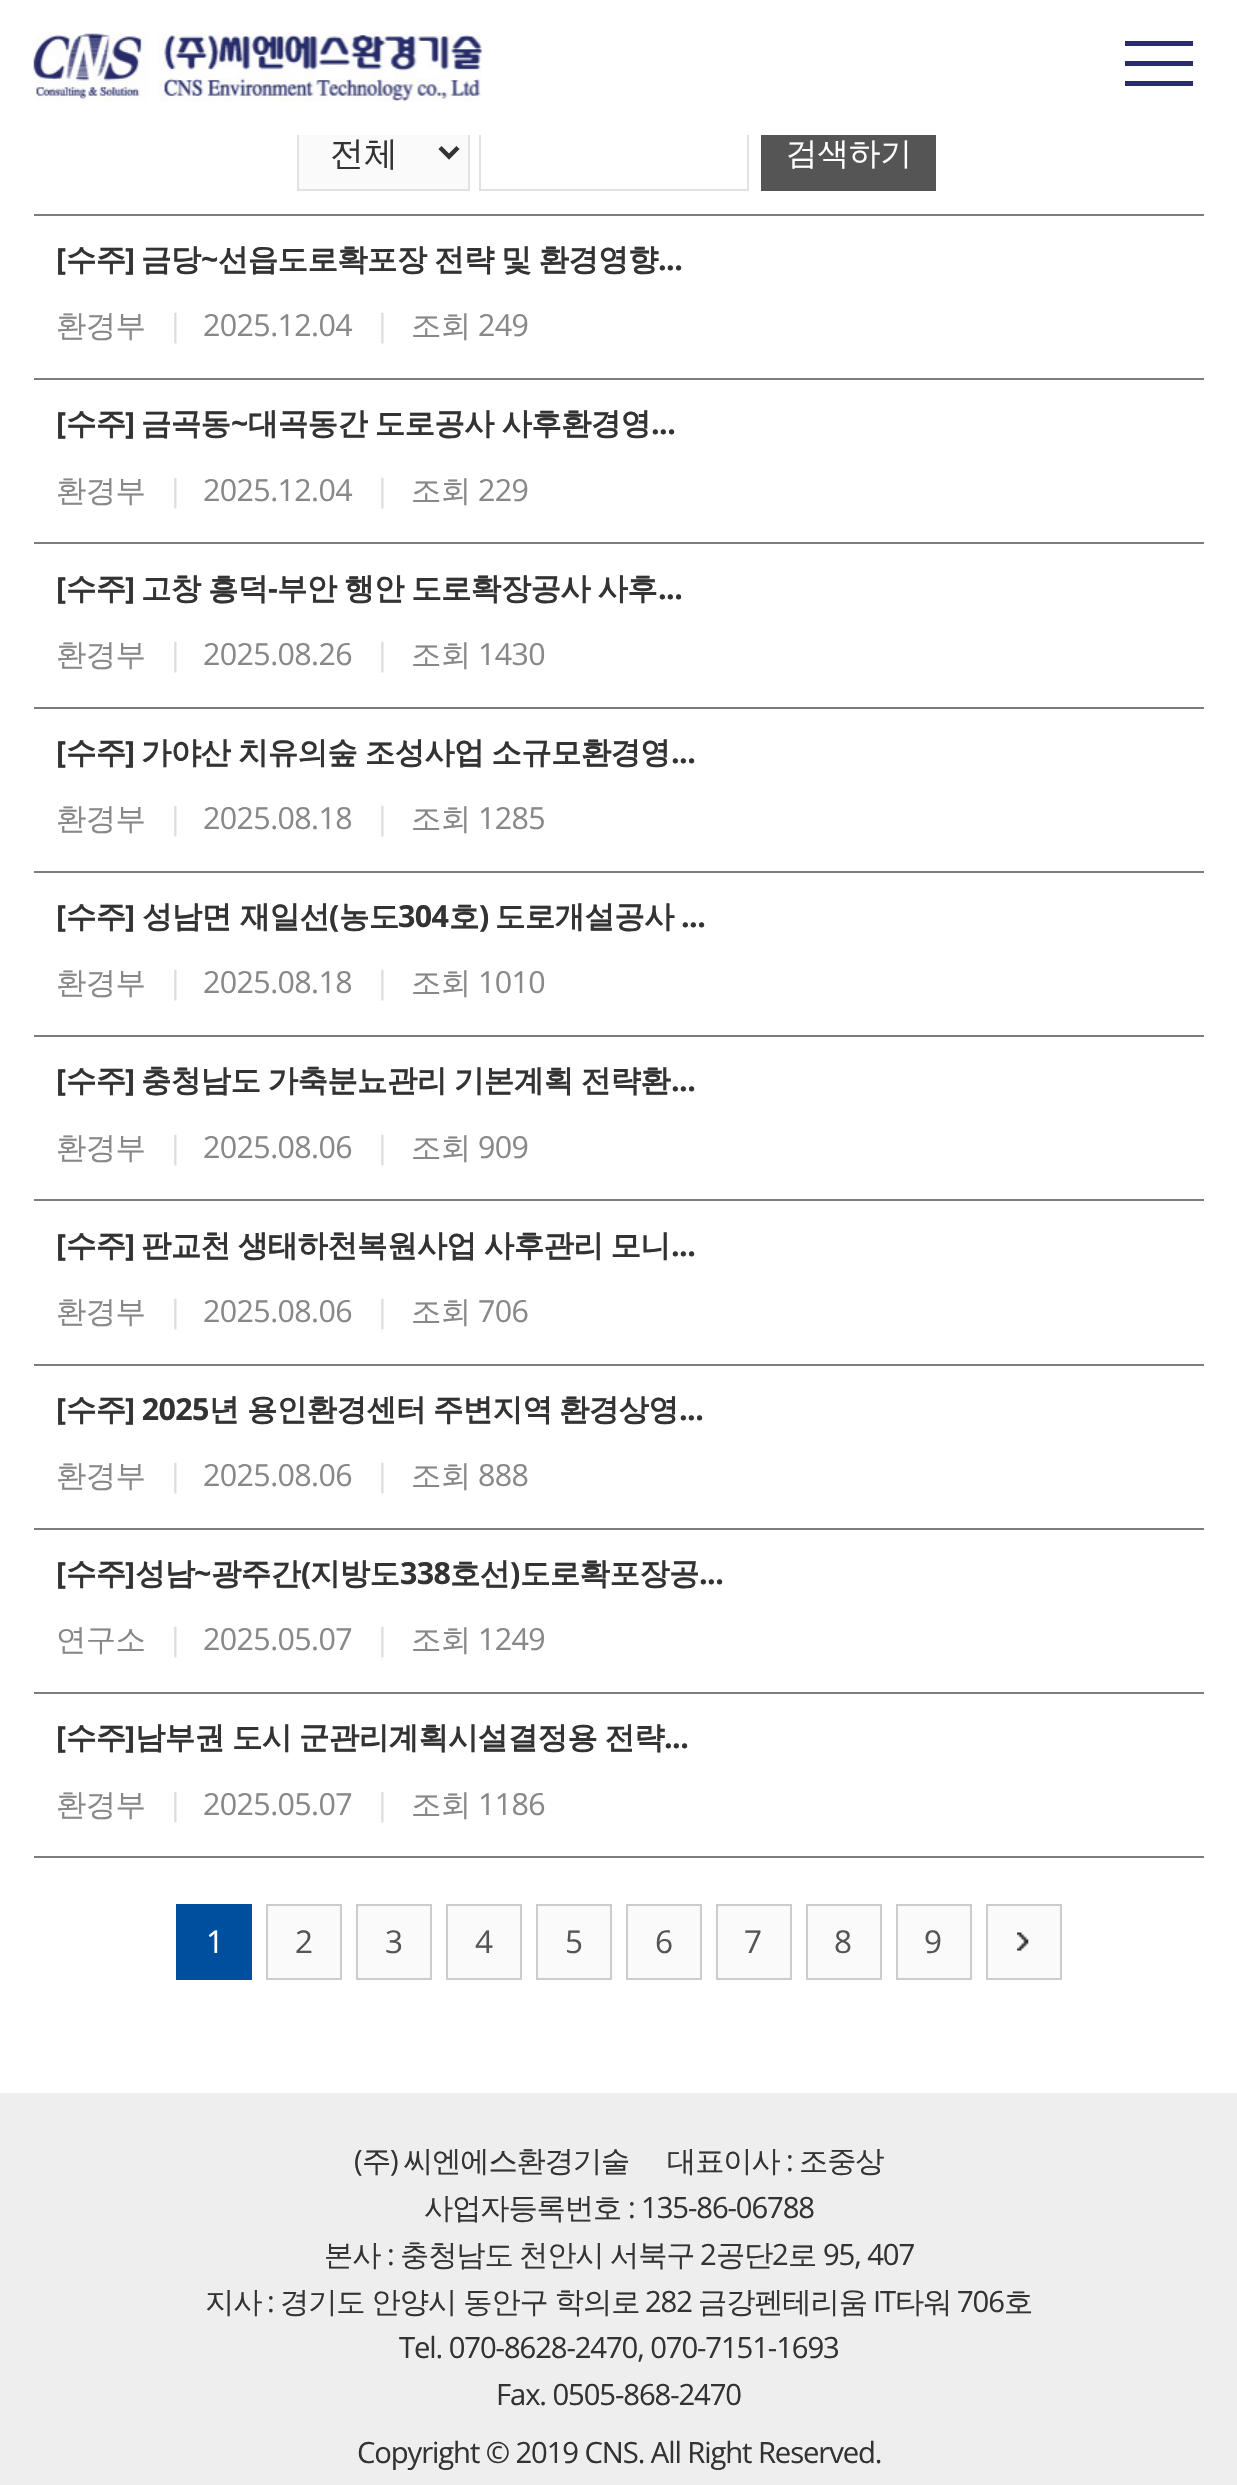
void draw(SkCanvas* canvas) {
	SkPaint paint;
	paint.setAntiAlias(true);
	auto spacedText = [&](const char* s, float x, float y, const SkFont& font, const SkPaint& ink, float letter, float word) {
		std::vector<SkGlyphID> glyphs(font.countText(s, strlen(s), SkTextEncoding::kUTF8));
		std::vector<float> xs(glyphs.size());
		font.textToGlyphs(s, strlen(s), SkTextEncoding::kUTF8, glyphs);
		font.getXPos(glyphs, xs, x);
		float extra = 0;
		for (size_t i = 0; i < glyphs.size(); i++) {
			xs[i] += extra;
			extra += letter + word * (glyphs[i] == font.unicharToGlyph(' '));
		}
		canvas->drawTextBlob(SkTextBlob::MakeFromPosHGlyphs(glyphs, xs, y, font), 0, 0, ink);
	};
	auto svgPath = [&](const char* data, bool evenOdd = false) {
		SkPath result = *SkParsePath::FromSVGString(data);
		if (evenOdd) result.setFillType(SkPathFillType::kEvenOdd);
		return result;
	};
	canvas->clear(0xffffffff);
	paint.setColor(0xfffafafa);
	canvas->drawRect(SkRect::MakeXYWH(299, 135, 169, 54), paint);
	paint.setStroke(true);
	paint.setStrokeWidth(2);
	paint.setColor(0xffe2e2e2);
	canvas->drawRect(SkRect::MakeXYWH(298, 114, 171, 76), paint);
	canvas->drawRect(SkRect::MakeXYWH(480, 114, 268, 76), paint);
	paint.setStroke(false);
	paint.setColor(0xffffffff);
	canvas->drawRect(SkRect::MakeXYWH(297, 113, 452, 22), paint);
	canvas->drawImageRect(SkImages::DeferredFromEncodedData(SkData::MakeFromFileName("img1.png")), SkRect::MakeXYWH(33, 33, 449, 69), SkSamplingOptions());
	paint.setColor(0xff282c69);
	canvas->drawRect(SkRect::MakeXYWH(1125, 61, 68, 5), paint);
	canvas->drawRect(SkRect::MakeXYWH(1125, 41, 68, 5), paint);
	canvas->drawRect(SkRect::MakeXYWH(1125, 81, 68, 5), paint);
	paint.setStroke(true);
	paint.setStrokeWidth(4.5);
	paint.setColor(0xff333333);
	canvas->drawPath(svgPath("M440 147.5L449 156.5L458 147.5"), paint);
	SkFont f1(fontMgr->matchFamilyStyle("WenQuanYi Zen Hei", SkFontStyle(500, SkFontStyle::kNormal_Width, SkFontStyle::kUpright_Slant)), 34);
	f1.setSubpixel(true);
	paint.setStroke(false);
	canvas->drawString("전체", 330, 165, f1, paint);
	paint.setColor(0xff555555);
	canvas->drawRect(SkRect::MakeXYWH(761, 135, 175, 56), paint);
	SkFont f2(fontMgr->matchFamilyStyle("WenQuanYi Zen Hei", SkFontStyle(500, SkFontStyle::kNormal_Width, SkFontStyle::kUpright_Slant)), 31.5);
	f2.setSubpixel(true);
	paint.setColor(0xffffffff);
	canvas->drawString("검색하기", 786, 164, f2, paint);
	paint.setColor(0xff7d7d7d);
	canvas->drawRect(SkRect::MakeXYWH(34, 214, 1170, 2), paint);
	canvas->drawRect(SkRect::MakeXYWH(34, 1856, 1170, 2), paint);
	SkFont f3(fontMgr->matchFamilyStyle("Open Sans", SkFontStyle::Bold()), 30.4);
	f3.setSubpixel(true);
	paint.setColor(0xff333333);
	spacedText("[", 56, 270, f3, paint, -0.6, 0);
	SkFont f4(fontMgr->matchFamilyStyle("WenQuanYi Zen Hei", SkFontStyle::Bold()), 30.4);
	f4.setSubpixel(true);
	spacedText("수주", 66, 270, f4, paint, -0.6, 0);
	spacedText("]", 125, 270, f3, paint, -0.6, 0);
	spacedText("금당", 141, 270, f4, paint, -0.6, 0);
	spacedText("~", 201, 270, f3, paint, -0.6, 0);
	spacedText("선읍도로확포장 전략 및 환경영향", 218, 270, f4, paint, -0.6, -1);
	spacedText("...", 658, 270, f3, paint, -0.6, 0);
	SkFont f5(fontMgr->matchFamilyStyle("WenQuanYi Zen Hei", SkFontStyle(500, SkFontStyle::kNormal_Width, SkFontStyle::kUpright_Slant)), 30.4);
	f5.setSubpixel(true);
	paint.setColor(0xff888888);
	spacedText("환경부", 56, 336, f5, paint, -0.6, 0);
	SkFont f6(fontMgr->matchFamilyStyle("Open Sans", SkFontStyle::Normal()), 30.4);
	f6.setSubpixel(true);
	paint.setColor(0xffdddddd);
	spacedText("|", 167, 336, f6, paint, -0.6, 0);
	paint.setColor(0xff888888);
	spacedText("2025.12.04", 203, 336, f6, paint, -0.6, 0);
	paint.setColor(0xffdddddd);
	spacedText("|", 374, 336, f6, paint, -0.6, 0);
	paint.setColor(0xff888888);
	spacedText("조회", 411, 336, f5, paint, -0.6, 0);
	spacedText("249", 478, 336, f6, paint, -0.6, 0);
	paint.setColor(0xff7d7d7d);
	canvas->drawRect(SkRect::MakeXYWH(34, 378, 1170, 2), paint);
	paint.setColor(0xff333333);
	spacedText("[", 56, 434, f3, paint, -0.6, 0);
	spacedText("수주", 66, 434, f4, paint, -0.6, 0);
	spacedText("]", 125, 434, f3, paint, -0.6, 0);
	spacedText("금곡동", 141, 434, f4, paint, -0.6, 0);
	spacedText("~", 231, 434, f3, paint, -0.6, 0);
	spacedText("대곡동간 도로공사 사후환경영", 248, 434, f4, paint, -0.6, -1);
	spacedText("...", 651, 434, f3, paint, -0.6, 0);
	paint.setColor(0xff888888);
	spacedText("환경부", 56, 501, f5, paint, -0.6, 0);
	paint.setColor(0xffdddddd);
	spacedText("|", 167, 501, f6, paint, -0.6, 0);
	paint.setColor(0xff888888);
	spacedText("2025.12.04", 203, 501, f6, paint, -0.6, 0);
	paint.setColor(0xffdddddd);
	spacedText("|", 374, 501, f6, paint, -0.6, 0);
	paint.setColor(0xff888888);
	spacedText("조회", 411, 501, f5, paint, -0.6, 0);
	spacedText("229", 478, 501, f6, paint, -0.6, 0);
	paint.setColor(0xff7d7d7d);
	canvas->drawRect(SkRect::MakeXYWH(34, 542, 1170, 2), paint);
	paint.setColor(0xff333333);
	spacedText("[", 56, 599, f3, paint, -0.6, 0);
	spacedText("수주", 66, 599, f4, paint, -0.6, 0);
	spacedText("]", 125, 599, f3, paint, -0.6, 0);
	spacedText("고창 흥덕", 141, 599, f4, paint, -0.6, -1);
	spacedText("-", 268, 599, f3, paint, -0.6, 0);
	spacedText("부안 행안 도로확장공사 사후", 277, 599, f4, paint, -0.6, -1);
	spacedText("...", 658, 599, f3, paint, -0.6, 0);
	paint.setColor(0xff888888);
	spacedText("환경부", 56, 665, f5, paint, -0.6, 0);
	paint.setColor(0xffdddddd);
	spacedText("|", 167, 665, f6, paint, -0.6, 0);
	paint.setColor(0xff888888);
	spacedText("2025.08.26", 203, 665, f6, paint, -0.6, 0);
	paint.setColor(0xffdddddd);
	spacedText("|", 374, 665, f6, paint, -0.6, 0);
	paint.setColor(0xff888888);
	spacedText("조회", 411, 665, f5, paint, -0.6, 0);
	spacedText("1430", 478, 665, f6, paint, -0.6, 0);
	paint.setColor(0xff7d7d7d);
	canvas->drawRect(SkRect::MakeXYWH(34, 707, 1170, 2), paint);
	paint.setColor(0xff333333);
	spacedText("[", 56, 763, f3, paint, -0.6, 0);
	spacedText("수주", 66, 763, f4, paint, -0.6, 0);
	spacedText("]", 125, 763, f3, paint, -0.6, 0);
	spacedText("가야산 치유의숲 조성사업 소규모환경영", 141, 763, f4, paint, -0.6, -1);
	spacedText("...", 671, 763, f3, paint, -0.6, 0);
	paint.setColor(0xff888888);
	spacedText("환경부", 56, 829, f5, paint, -0.6, 0);
	paint.setColor(0xffdddddd);
	spacedText("|", 167, 829, f6, paint, -0.6, 0);
	paint.setColor(0xff888888);
	spacedText("2025.08.18", 203, 829, f6, paint, -0.6, 0);
	paint.setColor(0xffdddddd);
	spacedText("|", 374, 829, f6, paint, -0.6, 0);
	paint.setColor(0xff888888);
	spacedText("조회", 411, 829, f5, paint, -0.6, 0);
	spacedText("1285", 478, 829, f6, paint, -0.6, 0);
	paint.setColor(0xff7d7d7d);
	canvas->drawRect(SkRect::MakeXYWH(34, 871, 1170, 2), paint);
	paint.setColor(0xff333333);
	spacedText("[", 56, 927, f3, paint, -0.6, 0);
	spacedText("수주", 66, 927, f4, paint, -0.6, 0);
	spacedText("]", 125, 927, f3, paint, -0.6, 0);
	spacedText("성남면 재일선", 142, 927, f4, paint, -0.6, 0);
	spacedText("(", 329, 927, f3, paint, -0.6, 0);
	spacedText("농도", 339, 927, f4, paint, -0.6, 0);
	spacedText("304", 398, 927, f3, paint, -0.6, 0);
	spacedText("호", 449, 927, f4, paint, -0.6, 0);
	spacedText(")", 479, 927, f3, paint, -0.6, 0);
	spacedText("도로개설공사", 495, 927, f4, paint, -0.6, 0);
	spacedText("...", 681, 927, f3, paint, -0.6, 0);
	paint.setColor(0xff888888);
	spacedText("환경부", 56, 993, f5, paint, -0.6, 0);
	paint.setColor(0xffdddddd);
	spacedText("|", 167, 993, f6, paint, -0.6, 0);
	paint.setColor(0xff888888);
	spacedText("2025.08.18", 203, 993, f6, paint, -0.6, 0);
	paint.setColor(0xffdddddd);
	spacedText("|", 374, 993, f6, paint, -0.6, 0);
	paint.setColor(0xff888888);
	spacedText("조회", 411, 993, f5, paint, -0.6, 0);
	spacedText("1010", 478, 993, f6, paint, -0.6, 0);
	paint.setColor(0xff7d7d7d);
	canvas->drawRect(SkRect::MakeXYWH(34, 1035, 1170, 2), paint);
	paint.setColor(0xff333333);
	spacedText("[", 56, 1091, f3, paint, -0.6, 0);
	spacedText("수주", 66, 1091, f4, paint, -0.6, 0);
	spacedText("]", 125, 1091, f3, paint, -0.6, 0);
	spacedText("충청남도 가축분뇨관리 기본계획 전략환", 141, 1091, f4, paint, -0.6, -1);
	spacedText("...", 671, 1091, f3, paint, -0.6, 0);
	paint.setColor(0xff888888);
	spacedText("환경부", 56, 1158, f5, paint, -0.6, 0);
	paint.setColor(0xffdddddd);
	spacedText("|", 167, 1158, f6, paint, -0.6, 0);
	paint.setColor(0xff888888);
	spacedText("2025.08.06", 203, 1158, f6, paint, -0.6, 0);
	paint.setColor(0xffdddddd);
	spacedText("|", 374, 1158, f6, paint, -0.6, 0);
	paint.setColor(0xff888888);
	spacedText("조회", 411, 1158, f5, paint, -0.6, 0);
	spacedText("909", 478, 1158, f6, paint, -0.6, 0);
	paint.setColor(0xff7d7d7d);
	canvas->drawRect(SkRect::MakeXYWH(34, 1199, 1170, 2), paint);
	paint.setColor(0xff333333);
	spacedText("[", 56, 1256, f3, paint, -0.6, 0);
	spacedText("수주", 66, 1256, f4, paint, -0.6, 0);
	spacedText("]", 125, 1256, f3, paint, -0.6, 0);
	spacedText("판교천 생태하천복원사업 사후관리 모니", 141, 1256, f4, paint, -0.6, -1);
	spacedText("...", 671, 1256, f3, paint, -0.6, 0);
	paint.setColor(0xff888888);
	spacedText("환경부", 56, 1322, f5, paint, -0.6, 0);
	paint.setColor(0xffdddddd);
	spacedText("|", 167, 1322, f6, paint, -0.6, 0);
	paint.setColor(0xff888888);
	spacedText("2025.08.06", 203, 1322, f6, paint, -0.6, 0);
	paint.setColor(0xffdddddd);
	spacedText("|", 374, 1322, f6, paint, -0.6, 0);
	paint.setColor(0xff888888);
	spacedText("조회", 411, 1322, f5, paint, -0.6, 0);
	spacedText("706", 478, 1322, f6, paint, -0.6, 0);
	paint.setColor(0xff7d7d7d);
	canvas->drawRect(SkRect::MakeXYWH(34, 1364, 1170, 2), paint);
	paint.setColor(0xff333333);
	spacedText("[", 56, 1420, f3, paint, -0.6, 0);
	spacedText("수주", 66, 1420, f4, paint, -0.6, 0);
	spacedText("] 2025", 125, 1420, f3, paint, -0.6, 0);
	spacedText("년", 209, 1420, f4, paint, -0.6, 0);
	spacedText("용인환경센터", 247, 1420, f4, paint, -0.6, 0);
	spacedText("주변지역", 433, 1420, f4, paint, -0.6, 0);
	spacedText("환경상영", 559, 1420, f4, paint, -0.6, 0);
	spacedText("...", 679, 1420, f3, paint, -0.6, 0);
	paint.setColor(0xff888888);
	spacedText("환경부", 56, 1486, f5, paint, -0.6, 0);
	paint.setColor(0xffdddddd);
	spacedText("|", 167, 1486, f6, paint, -0.6, 0);
	paint.setColor(0xff888888);
	spacedText("2025.08.06", 203, 1486, f6, paint, -0.6, 0);
	paint.setColor(0xffdddddd);
	spacedText("|", 374, 1486, f6, paint, -0.6, 0);
	paint.setColor(0xff888888);
	spacedText("조회", 411, 1486, f5, paint, -0.6, 0);
	spacedText("888", 478, 1486, f6, paint, -0.6, 0);
	paint.setColor(0xff7d7d7d);
	canvas->drawRect(SkRect::MakeXYWH(34, 1528, 1170, 2), paint);
	paint.setColor(0xff333333);
	spacedText("[", 56, 1584, f3, paint, -0.6, 0);
	spacedText("수주", 66, 1584, f4, paint, -0.6, 0);
	spacedText("]", 125, 1584, f3, paint, -0.6, 0);
	spacedText("성남", 135, 1584, f4, paint, -0.6, 0);
	spacedText("~", 194, 1584, f3, paint, -0.6, 0);
	spacedText("광주간", 211, 1584, f4, paint, -0.6, 0);
	spacedText("(", 301, 1584, f3, paint, -0.6, 0);
	spacedText("지방도", 310, 1584, f4, paint, -0.6, 0);
	spacedText("338", 400, 1584, f3, paint, -0.6, 0);
	spacedText("호선", 450, 1584, f4, paint, -0.6, 0);
	spacedText(")", 510, 1584, f3, paint, -0.6, 0);
	spacedText("도로확포장공", 520, 1584, f4, paint, -0.6, 0);
	spacedText("...", 699, 1584, f3, paint, -0.6, 0);
	paint.setColor(0xff888888);
	spacedText("연구소", 56, 1650, f5, paint, -0.6, 0);
	paint.setColor(0xffdddddd);
	spacedText("|", 167, 1650, f6, paint, -0.6, 0);
	paint.setColor(0xff888888);
	spacedText("2025.05.07", 203, 1650, f6, paint, -0.6, 0);
	paint.setColor(0xffdddddd);
	spacedText("|", 374, 1650, f6, paint, -0.6, 0);
	paint.setColor(0xff888888);
	spacedText("조회", 411, 1650, f5, paint, -0.6, 0);
	spacedText("1249", 478, 1650, f6, paint, -0.6, 0);
	paint.setColor(0xff7d7d7d);
	canvas->drawRect(SkRect::MakeXYWH(34, 1692, 1170, 2), paint);
	paint.setColor(0xff333333);
	spacedText("[", 56, 1748, f3, paint, -0.6, 0);
	spacedText("수주", 66, 1748, f4, paint, -0.6, 0);
	spacedText("]", 125, 1748, f3, paint, -0.6, 0);
	spacedText("남부권 도시 군관리계획시설결정용 전략", 135, 1748, f4, paint, -0.6, -1);
	spacedText("...", 664, 1748, f3, paint, -0.6, 0);
	paint.setColor(0xff888888);
	spacedText("환경부", 56, 1815, f5, paint, -0.6, 0);
	paint.setColor(0xffdddddd);
	spacedText("|", 167, 1815, f6, paint, -0.6, 0);
	paint.setColor(0xff888888);
	spacedText("2025.05.07", 203, 1815, f6, paint, -0.6, 0);
	paint.setColor(0xffdddddd);
	spacedText("|", 374, 1815, f6, paint, -0.6, 0);
	paint.setColor(0xff888888);
	spacedText("조회", 411, 1815, f5, paint, -0.6, 0);
	spacedText("1186", 478, 1815, f6, paint, -0.6, 0);
	paint.setColor(0xff004f9f);
	canvas->drawRect(SkRect::MakeXYWH(176, 1904, 76, 76), paint);
	SkFont f7(fontMgr->matchFamilyStyle("Open Sans", SkFontStyle::Normal()), 31.5);
	f7.setSubpixel(true);
	paint.setColor(0xffffffff);
	canvas->drawString("1", 206, 1953, f7, paint);
	paint.setColor(0xfffafafa);
	canvas->drawRect(SkRect::MakeXYWH(267, 1905, 74, 74), paint);
	paint.setStroke(true);
	paint.setStrokeWidth(2);
	paint.setColor(0xffcccccc);
	canvas->drawRect(SkRect::MakeXYWH(267, 1905, 74, 74), paint);
	paint.setStroke(false);
	paint.setColor(0xff555555);
	canvas->drawString("2", 295, 1953, f7, paint);
	paint.setColor(0xfffafafa);
	canvas->drawRect(SkRect::MakeXYWH(357, 1905, 74, 74), paint);
	paint.setStroke(true);
	paint.setColor(0xffcccccc);
	canvas->drawRect(SkRect::MakeXYWH(357, 1905, 74, 74), paint);
	paint.setStroke(false);
	paint.setColor(0xff555555);
	canvas->drawString("3", 385, 1953, f7, paint);
	paint.setColor(0xfffafafa);
	canvas->drawRect(SkRect::MakeXYWH(447, 1905, 74, 74), paint);
	paint.setStroke(true);
	paint.setColor(0xffcccccc);
	canvas->drawRect(SkRect::MakeXYWH(447, 1905, 74, 74), paint);
	paint.setStroke(false);
	paint.setColor(0xff555555);
	canvas->drawString("4", 475, 1953, f7, paint);
	paint.setColor(0xfffafafa);
	canvas->drawRect(SkRect::MakeXYWH(537, 1905, 74, 74), paint);
	paint.setStroke(true);
	paint.setColor(0xffcccccc);
	canvas->drawRect(SkRect::MakeXYWH(537, 1905, 74, 74), paint);
	paint.setStroke(false);
	paint.setColor(0xff555555);
	canvas->drawString("5", 565, 1953, f7, paint);
	paint.setColor(0xfffafafa);
	canvas->drawRect(SkRect::MakeXYWH(627, 1905, 74, 74), paint);
	paint.setStroke(true);
	paint.setColor(0xffcccccc);
	canvas->drawRect(SkRect::MakeXYWH(627, 1905, 74, 74), paint);
	paint.setStroke(false);
	paint.setColor(0xff555555);
	canvas->drawString("6", 655, 1953, f7, paint);
	paint.setColor(0xfffafafa);
	canvas->drawRect(SkRect::MakeXYWH(717, 1905, 74, 74), paint);
	paint.setStroke(true);
	paint.setColor(0xffcccccc);
	canvas->drawRect(SkRect::MakeXYWH(717, 1905, 74, 74), paint);
	paint.setStroke(false);
	paint.setColor(0xff555555);
	canvas->drawString("7", 744, 1953, f7, paint);
	paint.setColor(0xfffafafa);
	canvas->drawRect(SkRect::MakeXYWH(807, 1905, 74, 74), paint);
	paint.setStroke(true);
	paint.setColor(0xffcccccc);
	canvas->drawRect(SkRect::MakeXYWH(807, 1905, 74, 74), paint);
	paint.setStroke(false);
	paint.setColor(0xff555555);
	canvas->drawString("8", 834, 1953, f7, paint);
	paint.setColor(0xfffafafa);
	canvas->drawRect(SkRect::MakeXYWH(897, 1905, 74, 74), paint);
	paint.setStroke(true);
	paint.setColor(0xffcccccc);
	canvas->drawRect(SkRect::MakeXYWH(897, 1905, 74, 74), paint);
	paint.setStroke(false);
	paint.setColor(0xff555555);
	canvas->drawString("9", 924, 1953, f7, paint);
	paint.setColor(0xfffafafa);
	canvas->drawRect(SkRect::MakeXYWH(988, 1906, 72, 72), paint);
	canvas->drawImageRect(SkImages::DeferredFromEncodedData(SkData::MakeFromFileName("img2.png")), SkRect::MakeXYWH(1017, 1932, 12, 19), SkSamplingOptions());
	paint.setStroke(true);
	paint.setColor(0xffcccccc);
	canvas->drawRect(SkRect::MakeXYWH(987, 1905, 74, 74), paint);
	paint.setStroke(false);
	paint.setColor(0xffeeeeee);
	canvas->drawRect(SkRect::MakeXYWH(0, 2093, 1237, 392), paint);
	SkFont f8(fontMgr->matchFamilyStyle("Open Sans", SkFontStyle::Normal()), 29.25);
	f8.setSubpixel(true);
	paint.setColor(0xff333333);
	spacedText("(", 354, 2171, f8, paint, -1.1, 0);
	SkFont f9(fontMgr->matchFamilyStyle("WenQuanYi Zen Hei", SkFontStyle(500, SkFontStyle::kNormal_Width, SkFontStyle::kUpright_Slant)), 29.25);
	f9.setSubpixel(true);
	spacedText("주", 362, 2171, f9, paint, -1.1, 0);
	spacedText(")", 390, 2171, f8, paint, -1.1, 0);
	spacedText("씨엔에스환경기술", 404, 2171, f9, paint, -1.1, 0);
	spacedText("대표이사", 667, 2171, f9, paint, -1.1, 0);
	spacedText(":", 786, 2171, f8, paint, -1.1, 0);
	spacedText("조중상", 799, 2171, f9, paint, -1.1, 0);
	spacedText("사업자등록번호", 424, 2218, f9, paint, -1.1, 0);
	spacedText(": 135-86-06788", 628, 2218, f8, paint, -1.1, 0);
	spacedText("본사", 324, 2265, f9, paint, -1.1, 0);
	spacedText(":", 387, 2265, f8, paint, -1.1, 0);
	spacedText("충청남도", 400, 2265, f9, paint, -1.1, 0);
	spacedText("천안시", 519, 2265, f9, paint, -1.1, 0);
	spacedText("서북구", 610, 2265, f9, paint, -1.1, 0);
	spacedText("2", 700, 2265, f8, paint, -1.1, 0);
	spacedText("공단", 716, 2265, f9, paint, -1.1, 0);
	spacedText("2", 772, 2265, f8, paint, -1.1, 0);
	spacedText("로", 788, 2265, f9, paint, -1.1, 0);
	spacedText("95, 407", 823, 2265, f8, paint, -1.1, 0);
	spacedText("지사", 205, 2312, f9, paint, -1.1, 0);
	spacedText(":", 267, 2312, f8, paint, -1.1, 0);
	spacedText("경기도 안양시 동안구 학의로", 280, 2312, f9, paint, -1.1, -0.5);
	spacedText("282", 645, 2312, f8, paint, -1.1, 0);
	spacedText("금강펜테리움", 698, 2312, f9, paint, -1.1, 0);
	spacedText("IT", 873, 2312, f8, paint, -1.1, 0);
	spacedText("타워", 895, 2312, f9, paint, -1.1, 0);
	spacedText("706", 957, 2312, f8, paint, -1.1, 0);
	spacedText("호", 1004, 2312, f9, paint, -1.1, 0);
	spacedText("Tel. 070-8628-2470, 070-7151-1693", 399, 2358, f8, paint, -1.1, 0);
	spacedText("Fax. 0505-868-2470", 496, 2405, f8, paint, -1.1, 0);
	spacedText("Copyright © 2019 CNS. All Right Reserved.", 357, 2463, f8, paint, -1.1, 0);
}
